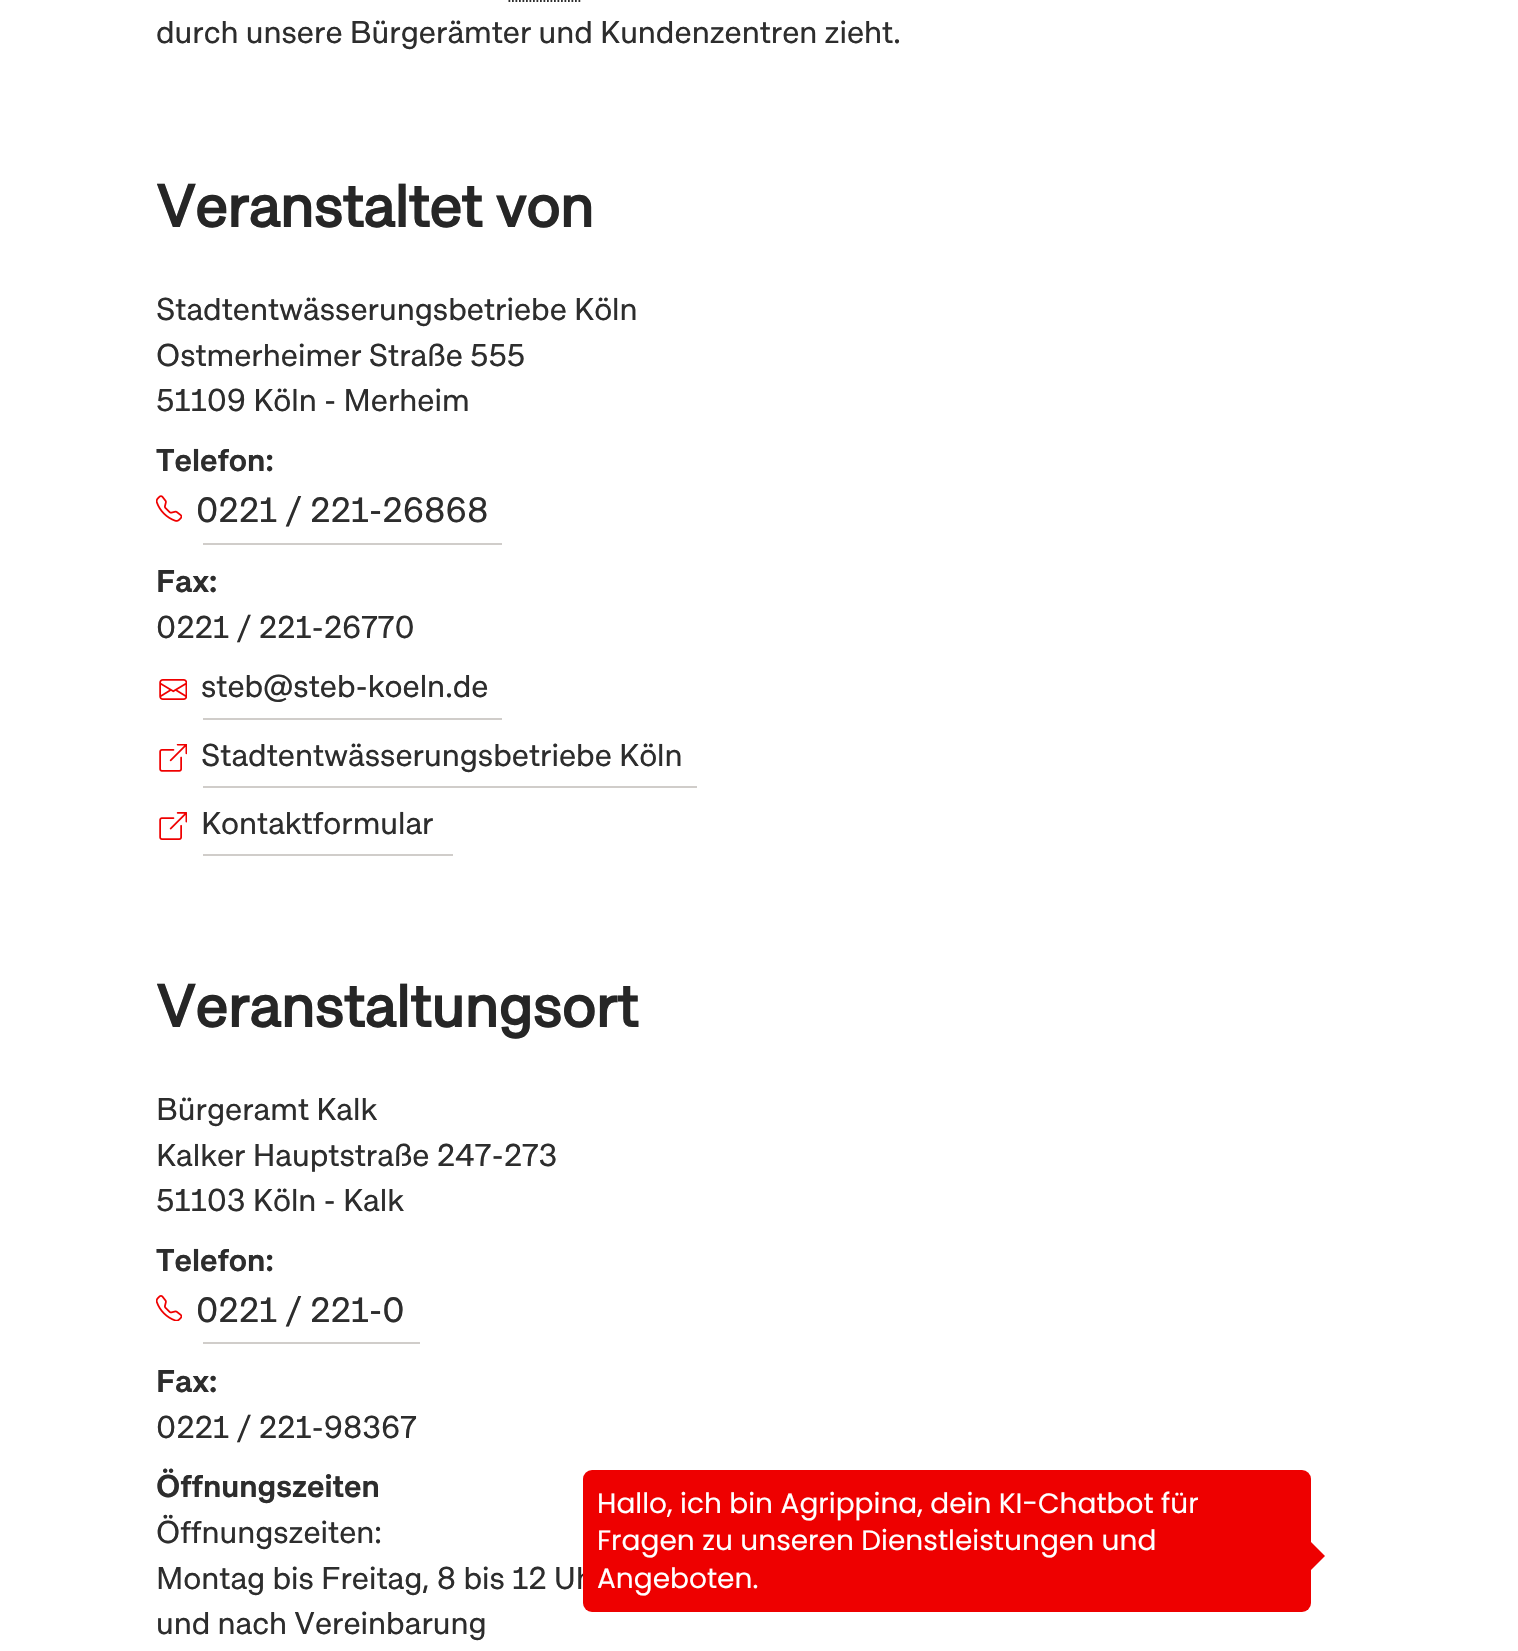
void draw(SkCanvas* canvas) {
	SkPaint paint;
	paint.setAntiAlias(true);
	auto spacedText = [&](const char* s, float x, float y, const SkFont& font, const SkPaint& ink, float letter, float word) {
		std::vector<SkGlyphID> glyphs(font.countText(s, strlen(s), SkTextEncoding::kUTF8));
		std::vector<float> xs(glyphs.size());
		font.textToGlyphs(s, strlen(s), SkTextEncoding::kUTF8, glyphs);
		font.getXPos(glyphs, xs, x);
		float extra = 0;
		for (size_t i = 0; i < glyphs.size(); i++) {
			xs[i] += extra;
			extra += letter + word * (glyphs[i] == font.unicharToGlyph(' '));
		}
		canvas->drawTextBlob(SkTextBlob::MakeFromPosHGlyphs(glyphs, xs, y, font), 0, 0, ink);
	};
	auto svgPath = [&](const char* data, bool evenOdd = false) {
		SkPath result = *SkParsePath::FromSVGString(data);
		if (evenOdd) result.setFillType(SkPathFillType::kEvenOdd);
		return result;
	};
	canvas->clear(0xffffffff);
	paint.setStroke(true);
	paint.setStrokeWidth(1.8);
	paint.setColor(0xff2d2d2d);
	paint.setPathEffect(SkDashPathEffect::Make({{1.75f, 1.75f}}, 0));
	canvas->drawPath(svgPath("M508.5 1H580.5"), paint);
	paint.setPathEffect(nullptr);
	SkFont f1(fontMgr->matchFamilyStyle("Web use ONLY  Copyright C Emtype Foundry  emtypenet", SkFontStyle::Normal()), 31.5);
	f1.setSubpixel(true);
	paint.setStroke(false);
	canvas->drawString("durch unsere Bürgerämter und Kundenzentren zieht.", 156, 43, f1, paint);
	SkFont f2(fontMgr->matchFamilyStyle("Web use ONLY  Copyright C Emtype Foundry  emtypenet", SkFontStyle::Bold()), 59.5);
	f2.setSubpixel(true);
	paint.setColor(0xff262626);
	spacedText("Veranstaltet von", 156, 227, f2, paint, -0.2, 0);
	paint.setColor(0xff2d2d2d);
	canvas->drawString("Stadtentwässerungsbetriebe Köln", 156, 320, f1, paint);
	canvas->drawString("Ostmerheimer Straße 555", 156, 366, f1, paint);
	canvas->drawString("51109 Köln - Merheim", 156, 411, f1, paint);
	SkFont f3(fontMgr->matchFamilyStyle("Web use ONLY  Copyright C Emtype Foundry  emtypenet", SkFontStyle(600, SkFontStyle::kNormal_Width, SkFontStyle::kUpright_Slant)), 31.5);
	f3.setSubpixel(true);
	canvas->drawString("Telefon:", 156, 471, f3, paint);
	paint.setColor(0xffd0cdca);
	canvas->drawRect(SkRect::MakeXYWH(203, 543, 299, 2), paint);
	canvas->drawImageRect(SkImages::DeferredFromEncodedData(SkData::MakeFromFileName("img1.png")), SkRect::MakeXYWH(156, 495, 26, 27), SkSamplingOptions());
	SkFont f4(fontMgr->matchFamilyStyle("Web use ONLY  Copyright C Emtype Foundry  emtypenet", SkFontStyle::Normal()), 35);
	f4.setSubpixel(true);
	paint.setColor(0xff2d2d2d);
	canvas->drawString("0221 / 221-26868", 196, 522, f4, paint);
	canvas->drawString("Fax:", 156, 592, f3, paint);
	canvas->drawString("0221 / 221-26770", 156, 638, f1, paint);
	paint.setColor(0xffd0cdca);
	canvas->drawRect(SkRect::MakeXYWH(203, 718, 299, 2), paint);
	canvas->drawImageRect(SkImages::DeferredFromEncodedData(SkData::MakeFromFileName("img2.png")), SkRect::MakeXYWH(159, 679, 28, 21), SkSamplingOptions());
	paint.setColor(0xff2d2d2d);
	canvas->drawString("steb@steb-koeln.de", 201, 697, f1, paint);
	paint.setColor(0xffd0cdca);
	canvas->drawRect(SkRect::MakeXYWH(203, 786, 494, 2), paint);
	canvas->drawImageRect(SkImages::DeferredFromEncodedData(SkData::MakeFromFileName("img3.png")), SkRect::MakeXYWH(159, 744, 28, 28), SkSamplingOptions());
	paint.setColor(0xff2d2d2d);
	canvas->drawString("Stadtentwässerungsbetriebe Köln", 201, 766, f1, paint);
	paint.setColor(0xffd0cdca);
	canvas->drawRect(SkRect::MakeXYWH(203, 854, 250, 2), paint);
	canvas->drawImageRect(SkImages::DeferredFromEncodedData(SkData::MakeFromFileName("img4.png")), SkRect::MakeXYWH(159, 812, 28, 28), SkSamplingOptions());
	paint.setColor(0xff2d2d2d);
	canvas->drawString("Kontaktformular", 201, 834, f1, paint);
	paint.setColor(0xff262626);
	canvas->drawString("Veranstaltungsort", 156, 1027, f2, paint);
	paint.setColor(0xff2d2d2d);
	canvas->drawString("Bürgeramt Kalk", 156, 1120, f1, paint);
	canvas->drawString("Kalker Hauptstraße 247-273", 156, 1166, f1, paint);
	canvas->drawString("51103 Köln - Kalk", 156, 1211, f1, paint);
	canvas->drawString("Telefon:", 156, 1271, f3, paint);
	paint.setColor(0xffd0cdca);
	canvas->drawRect(SkRect::MakeXYWH(203, 1342, 217, 2), paint);
	canvas->drawImageRect(SkImages::DeferredFromEncodedData(SkData::MakeFromFileName("img5.png")), SkRect::MakeXYWH(156, 1295, 26, 26), SkSamplingOptions());
	paint.setColor(0xff2d2d2d);
	canvas->drawString("0221 / 221-0", 196, 1322, f4, paint);
	canvas->drawString("Fax:", 156, 1392, f3, paint);
	canvas->drawString("0221 / 221-98367", 156, 1438, f1, paint);
	canvas->drawString("Öffnungszeiten", 156, 1497, f3, paint);
	canvas->drawString("Öffnungszeiten:", 156, 1543, f1, paint);
	canvas->drawString("Montag bis Freitag, 8 bis 12 Uh", 156, 1589, f1, paint);
	canvas->drawString("und nach Vereinbarung", 156, 1634, f1, paint);
	paint.setColor(0xffee0000);
	canvas->drawRoundRect(SkRect::MakeXYWH(583, 1470, 728, 142), 9, 9, paint);
	SkFont f5(fontMgr->matchFamilyStyle("Poppins", SkFontStyle::Normal()), 28);
	f5.setSubpixel(true);
	paint.setColor(0xffffffff);
	canvas->drawString("Hallo, ich bin Agrippina, dein KI-Chatbot für", 597, 1513, f5, paint);
	canvas->drawString("Fragen zu unseren Dienstleistungen und", 597, 1550, f5, paint);
	paint.setColor(0xffee0000);
	canvas->drawPath(svgPath("M1311 1570V1542L1325 1556Z"), paint);
	paint.setColor(0xffffffff);
	canvas->drawString("Angeboten.", 597, 1588, f5, paint);
}
